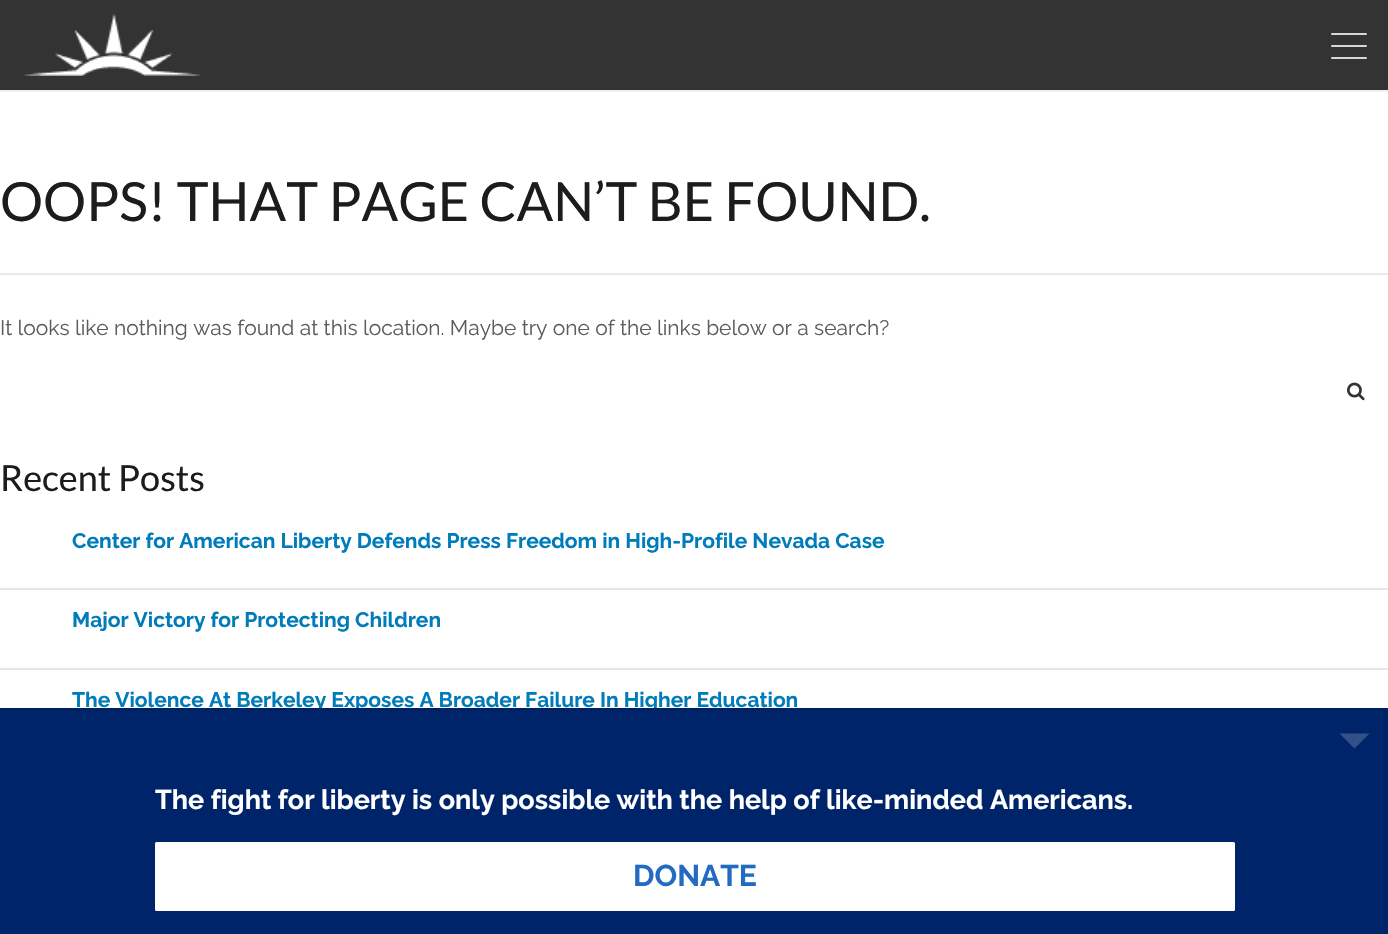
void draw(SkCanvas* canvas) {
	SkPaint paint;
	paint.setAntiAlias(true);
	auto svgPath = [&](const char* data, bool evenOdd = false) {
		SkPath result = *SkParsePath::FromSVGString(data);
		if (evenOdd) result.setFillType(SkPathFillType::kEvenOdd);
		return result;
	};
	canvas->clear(0xffffffff);
	paint.setColor(0xfff0f0f0);
	canvas->drawRect(SkRect::MakeXYWH(0, 90, 1388, 2), paint);
	paint.setColor(0xff333333);
	canvas->drawRect(SkRect::MakeXYWH(0, 0, 1388, 90), paint);
	canvas->drawImageRect(SkImages::DeferredFromEncodedData(SkData::MakeFromFileName("img1.png")), SkRect::MakeXYWH(24, 14, 176, 62), SkSamplingOptions());
	paint.setColor(0xffd8d8d8);
	canvas->drawRoundRect(SkRect::MakeXYWH(1331, 33, 36, 2), 1, 1, paint);
	canvas->drawRoundRect(SkRect::MakeXYWH(1331, 45, 36, 2), 1, 1, paint);
	canvas->drawRoundRect(SkRect::MakeXYWH(1331, 57, 36, 2), 1, 1, paint);
	paint.setColor(0xffe9e9e9);
	canvas->drawRect(SkRect::MakeXYWH(0, 273, 1388, 2), paint);
	SkFont f1(fontMgr->matchFamilyStyle("Lato", SkFontStyle::Normal()), 54);
	f1.setSubpixel(true);
	paint.setColor(0xff1c1c1c);
	canvas->drawString("OOPS! THAT PAGE CAN’T BE FOUND.", 0, 221, f1, paint);
	SkFont f2(fontMgr->matchFamilyStyle("Raleway", SkFontStyle::Normal()), 21);
	f2.setSubpixel(true);
	paint.setColor(0xff5c5c5c);
	canvas->drawString("It looks like nothing was found at this location. Maybe try one of the links below or a search?", 0, 335, f2, paint);
	canvas->drawImageRect(SkImages::DeferredFromEncodedData(SkData::MakeFromFileName("img2.png")), SkRect::MakeXYWH(1347, 382, 18, 19), SkSamplingOptions());
	SkFont f3(fontMgr->matchFamilyStyle("Lato", SkFontStyle::Normal()), 36);
	f3.setSubpixel(true);
	paint.setColor(0xff1c1c1c);
	canvas->drawString("Recent Posts", 0, 491, f3, paint);
	paint.setColor(0xffe6e6e6);
	canvas->drawRect(SkRect::MakeXYWH(0, 588, 1388, 2), paint);
	SkFont f4(fontMgr->matchFamilyStyle("Raleway", SkFontStyle::Bold()), 21);
	f4.setSubpixel(true);
	paint.setColor(0xff007cba);
	canvas->drawString("Center for American Liberty Defends Press Freedom in High-Profile Nevada Case", 72, 548, f4, paint);
	paint.setColor(0xffe6e6e6);
	canvas->drawRect(SkRect::MakeXYWH(0, 668, 1388, 2), paint);
	paint.setColor(0xff007cba);
	canvas->drawString("Major Victory for Protecting Children", 72, 627, f4, paint);
	canvas->drawString("The Violence At Berkeley Exposes A Broader Failure In Higher Education", 72, 707, f4, paint);
	paint.setColor(0xff00246a);
	canvas->drawRect(SkRect::MakeXYWH(0, 710, 1388, 224), paint);
	paint.setColor(0xff00205f);
	canvas->drawRect(SkRect::MakeXYWH(0, 708, 1388, 2), paint);
	paint.setColor(0xff335088);
	canvas->drawPath(svgPath("M1339.5 733.5H1369.5L1354.5 748.5Z"), paint);
	SkFont f5(fontMgr->matchFamilyStyle("Raleway", SkFontStyle::Bold()), 27);
	f5.setSubpixel(true);
	paint.setColor(0xffffffff);
	canvas->drawString("The fight for liberty is only possible with the help of like-minded Americans.", 155, 809, f5, paint);
	canvas->drawRoundRect(SkRect::MakeXYWH(155, 842, 1080, 69), 1.5, 1.5, paint);
	SkFont f6(fontMgr->matchFamilyStyle("Raleway", SkFontStyle::Bold()), 30);
	f6.setSubpixel(true);
	paint.setColor(0xff226bc1);
	canvas->drawString("DONATE", 633, 886, f6, paint);
}
